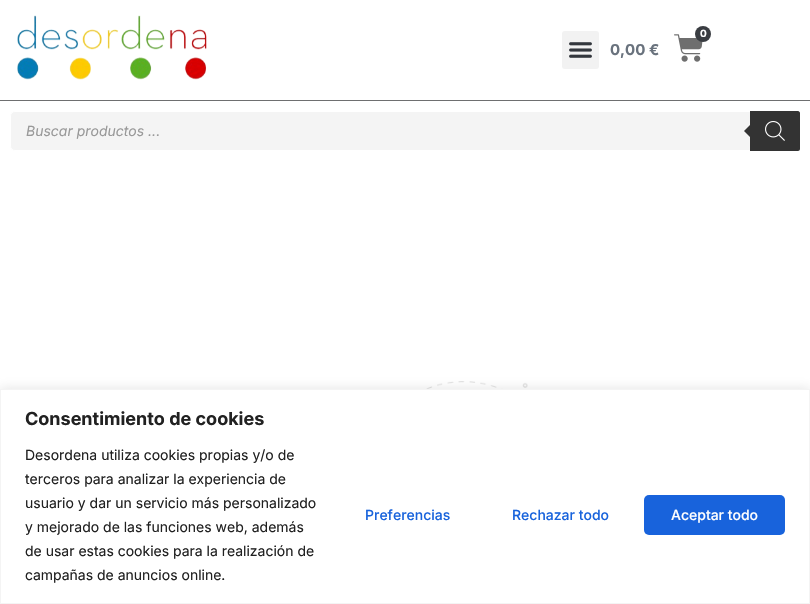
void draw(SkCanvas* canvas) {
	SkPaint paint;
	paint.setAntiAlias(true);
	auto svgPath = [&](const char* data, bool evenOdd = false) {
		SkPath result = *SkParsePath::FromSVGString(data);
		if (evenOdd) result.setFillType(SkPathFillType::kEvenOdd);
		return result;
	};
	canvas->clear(0xffffffff);
	paint.setColor(0xff6e6f70);
	canvas->drawRect(SkRect::MakeXYWH(0, 100, 810, 1), paint);
	canvas->drawImageRect(SkImages::DeferredFromEncodedData(SkData::MakeFromFileName("img1.png")), SkRect::MakeXYWH(17, 15, 190, 65), SkSamplingOptions());
	paint.setColor(0xfff2f2f2);
	canvas->drawRoundRect(SkRect::MakeXYWH(562, 31, 37, 38), 3, 3, paint);
	canvas->drawImageRect(SkImages::DeferredFromEncodedData(SkData::MakeFromFileName("img2.png")), SkRect::MakeXYWH(569, 42, 23, 16), SkSamplingOptions());
	canvas->drawImageRect(SkImages::DeferredFromEncodedData(SkData::MakeFromFileName("img3.png")), SkRect::MakeXYWH(674, 34, 29, 28), SkSamplingOptions());
	paint.setColor(0xff393c41);
	canvas->drawCircle(703, 34, 8, paint);
	SkFont f1(fontMgr->matchFamilyStyle("Inter", SkFontStyle::Bold()), 10);
	f1.setSubpixel(true);
	paint.setColor(0xffffffff);
	canvas->drawString("0", 700, 37, f1, paint);
	SkFont f2(fontMgr->matchFamilyStyle("Inter", SkFontStyle::Bold()), 15);
	f2.setSubpixel(true);
	paint.setColor(0xff69727d);
	canvas->drawString("0,00 €", 610, 55, f2, paint);
	paint.setColor(0xfff4f4f4);
	canvas->drawRoundRect(SkRect::MakeXYWH(10.5, 111.5, 789, 39), 4.5, 4.5, paint);
	paint.setStroke(true);
	paint.setStrokeWidth(1);
	paint.setColor(0xffffffff);
	canvas->drawRoundRect(SkRect::MakeXYWH(10.5, 111.5, 789, 39), 4.5, 4.5, paint);
	SkFont f3(fontMgr->matchFamilyStyle("Inter", SkFontStyle::Italic()), 14);
	f3.setSubpixel(true);
	paint.setStroke(false);
	paint.setColor(0xff999999);
	canvas->drawString("Buscar productos ...", 26, 136, f3, paint);
	paint.setColor(0xff333333);
	canvas->drawPath(svgPath("M750 111H798C799 111 800 112 800 113V149C800 150 799 151 798 151H750Z"), paint);
	canvas->drawPath(svgPath("M752 123V139L744 131Z"), paint);
	canvas->drawImageRect(SkImages::DeferredFromEncodedData(SkData::MakeFromFileName("img4.png")), SkRect::MakeXYWH(765, 121, 20, 20), SkSamplingOptions());
	canvas->drawImageRect(SkImages::DeferredFromEncodedData(SkData::MakeFromFileName("img5.png")), SkRect::MakeXYWH(426, 381, 102, 8), SkSamplingOptions());
	paint.setColor(0x4dacabab);
	paint.setMaskFilter(SkMaskFilter::MakeBlur(kNormal_SkBlurStyle, 5));
	canvas->drawRect(SkRect::MakeXYWH(0, 388, 810, 215), paint);
	paint.setMaskFilter(nullptr);
	paint.setColor(0xffffffff);
	canvas->drawRect(SkRect::MakeXYWH(0.5, 389.5, 809, 214), paint);
	paint.setStroke(true);
	paint.setColor(0xfff4f4f4);
	canvas->drawRect(SkRect::MakeXYWH(0.5, 389.5, 809, 214), paint);
	SkFont f4(fontMgr->matchFamilyStyle("Inter", SkFontStyle::Bold()), 18);
	f4.setSubpixel(true);
	paint.setStroke(false);
	paint.setColor(0xff212121);
	canvas->drawString("Consentimiento de cookies", 25, 425, f4, paint);
	SkFont f5(fontMgr->matchFamilyStyle("Inter", SkFontStyle::Normal()), 14);
	f5.setSubpixel(true);
	canvas->drawString("Desordena utiliza cookies propias y/o de", 25, 460, f5, paint);
	canvas->drawString("terceros para analizar la experiencia de", 25, 484, f5, paint);
	canvas->drawString("usuario y dar un servicio más personalizado", 25, 508, f5, paint);
	canvas->drawString("y mejorado de las funciones web, además", 25, 532, f5, paint);
	canvas->drawString("de usar estas cookies para la realización de", 25, 556, f5, paint);
	canvas->drawString("campañas de anuncios online.", 25, 580, f5, paint);
	SkFont f6(fontMgr->matchFamilyStyle("Inter", SkFontStyle(500, SkFontStyle::kNormal_Width, SkFontStyle::kUpright_Slant)), 14);
	f6.setSubpixel(true);
	paint.setColor(0xff1863dc);
	canvas->drawString("Preferencias", 365, 520, f6, paint);
	canvas->drawString("Rechazar todo", 512, 520, f6, paint);
	canvas->drawRoundRect(SkRect::MakeXYWH(644, 495, 141, 40), 5, 5, paint);
	paint.setColor(0xffffffff);
	canvas->drawString("Aceptar todo", 671, 520, f6, paint);
}
